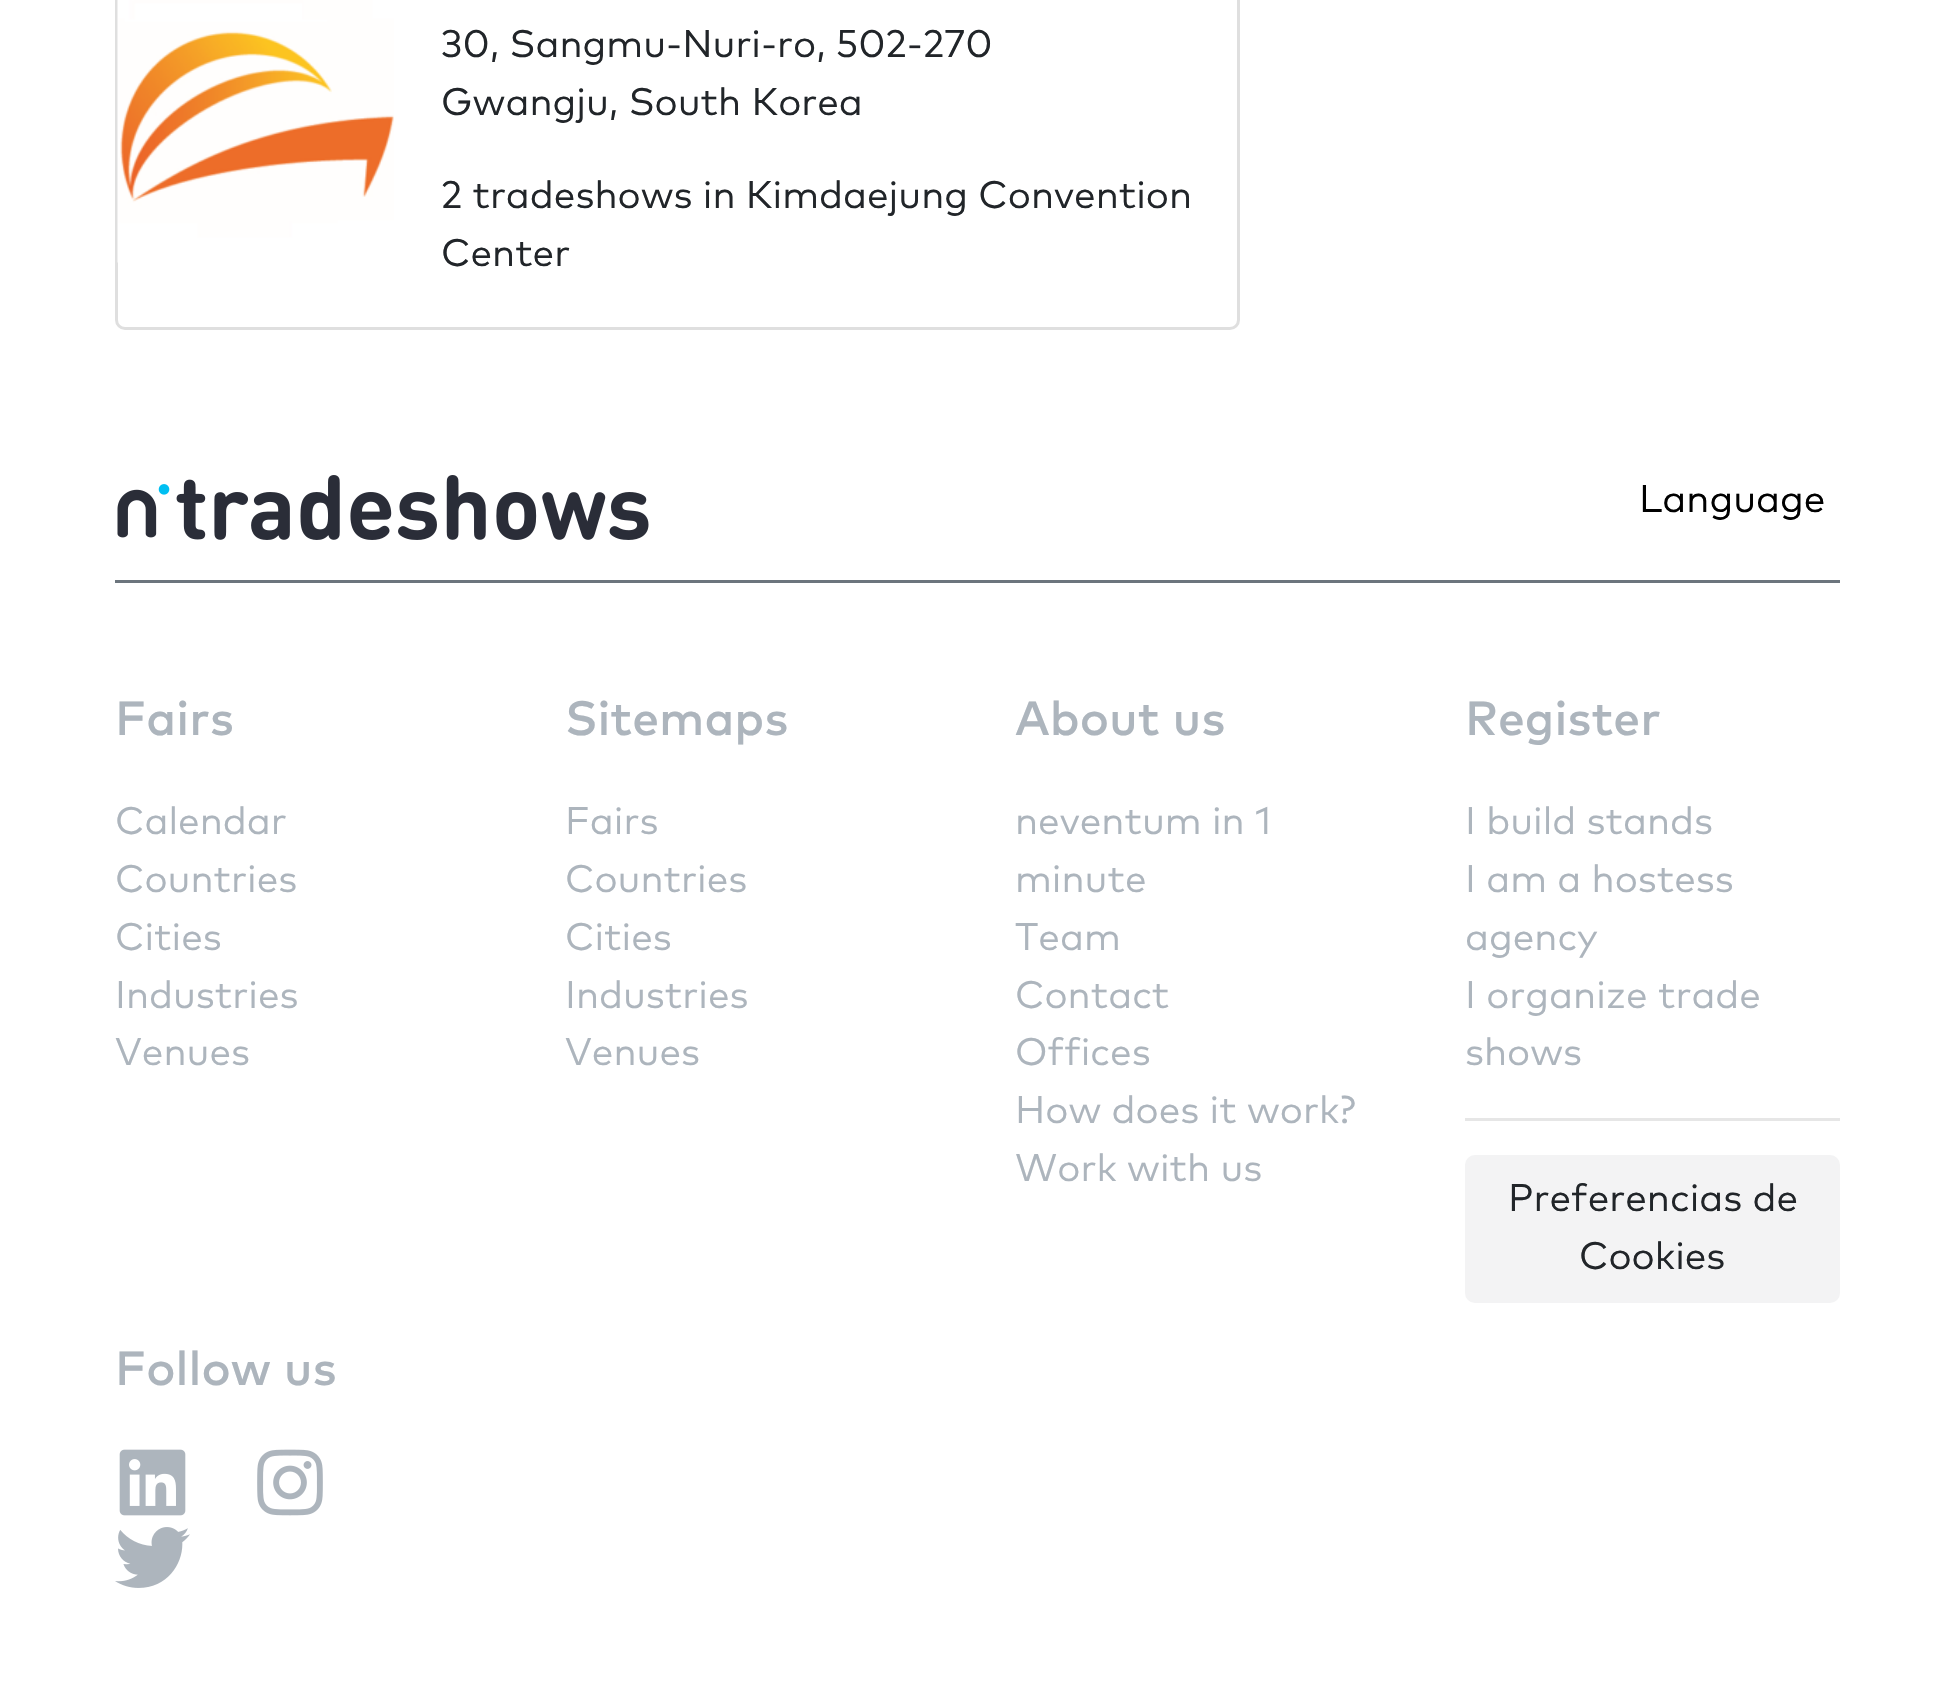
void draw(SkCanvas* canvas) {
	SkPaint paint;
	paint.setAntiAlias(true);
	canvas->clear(0xffffffff);
	paint.setStroke(true);
	paint.setStrokeWidth(3);
	paint.setColor(0xffdfdfdf);
	canvas->drawRoundRect(SkRect::MakeXYWH(116.5, -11.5, 1122, 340), 8.5, 8.5, paint);
	canvas->drawImageRect(SkImages::DeferredFromEncodedData(SkData::MakeFromFileName("img1.png")), SkRect::MakeXYWH(117, 0, 277, 263), SkSamplingOptions());
	SkFont f1(fontMgr->matchFamilyStyle("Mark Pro", SkFontStyle::Normal()), 38.5);
	f1.setSubpixel(true);
	paint.setStroke(false);
	paint.setColor(0xff212529);
	canvas->drawString("30, Sangmu-Nuri-ro, 502-270", 441, 57, f1, paint);
	canvas->drawString("Gwangju, South Korea", 441, 115, f1, paint);
	canvas->drawString("2 tradeshows in Kimdaejung Convention", 441, 208, f1, paint);
	canvas->drawString("Center", 441, 266, f1, paint);
	canvas->drawImageRect(SkImages::DeferredFromEncodedData(SkData::MakeFromFileName("img2.png")), SkRect::MakeXYWH(117, 475, 532, 65), SkSamplingOptions());
	paint.setColor(0xff000000);
	canvas->drawString("Language", 1639, 512, f1, paint);
	paint.setColor(0xff6c757d);
	canvas->drawRect(SkRect::MakeXYWH(115, 580, 1725, 3), paint);
	SkFont f2(fontMgr->matchFamilyStyle("Mark Pro", SkFontStyle(500, SkFontStyle::kNormal_Width, SkFontStyle::kUpright_Slant)), 48);
	f2.setSubpixel(true);
	paint.setColor(0xffadb5bd);
	canvas->drawString("Fairs", 115, 735, f2, paint);
	canvas->drawString("Calendar", 115, 834, f1, paint);
	canvas->drawString("Countries", 115, 892, f1, paint);
	canvas->drawString("Cities", 115, 950, f1, paint);
	canvas->drawString("Industries", 115, 1008, f1, paint);
	canvas->drawString("Venues", 115, 1065, f1, paint);
	canvas->drawString("Sitemaps", 565, 735, f2, paint);
	canvas->drawString("Fairs", 565, 834, f1, paint);
	canvas->drawString("Countries", 565, 892, f1, paint);
	canvas->drawString("Cities", 565, 950, f1, paint);
	canvas->drawString("Industries", 565, 1008, f1, paint);
	canvas->drawString("Venues", 565, 1065, f1, paint);
	canvas->drawString("About us", 1015, 735, f2, paint);
	canvas->drawString("neventum in 1", 1015, 834, f1, paint);
	canvas->drawString("minute", 1015, 892, f1, paint);
	canvas->drawString("Team", 1015, 950, f1, paint);
	canvas->drawString("Contact", 1015, 1008, f1, paint);
	canvas->drawString("Offices", 1015, 1065, f1, paint);
	canvas->drawString("How does it work?", 1015, 1123, f1, paint);
	canvas->drawString("Work with us", 1015, 1181, f1, paint);
	canvas->drawString("Register", 1465, 735, f2, paint);
	canvas->drawString("I build stands", 1465, 834, f1, paint);
	canvas->drawString("I am a hostess", 1465, 892, f1, paint);
	canvas->drawString("agency", 1465, 950, f1, paint);
	canvas->drawString("I organize trade", 1465, 1008, f1, paint);
	canvas->drawString("shows", 1465, 1065, f1, paint);
	paint.setColor(0xffe6e6e6);
	canvas->drawRect(SkRect::MakeXYWH(1465, 1118, 375, 3), paint);
	paint.setColor(0xfff3f3f4);
	canvas->drawRoundRect(SkRect::MakeXYWH(1466.5, 1156.5, 372, 145), 8.5, 8.5, paint);
	paint.setStroke(true);
	canvas->drawRoundRect(SkRect::MakeXYWH(1466.5, 1156.5, 372, 145), 8.5, 8.5, paint);
	paint.setStroke(false);
	paint.setColor(0xff212529);
	canvas->drawString("Preferencias de", 1508, 1211, f1, paint);
	canvas->drawString("Cookies", 1579, 1269, f1, paint);
	paint.setColor(0xffadb5bd);
	canvas->drawString("Follow us", 115, 1385, f2, paint);
	canvas->drawImageRect(SkImages::DeferredFromEncodedData(SkData::MakeFromFileName("img3.png")), SkRect::MakeXYWH(119, 1449, 67, 67), SkSamplingOptions());
	canvas->drawImageRect(SkImages::DeferredFromEncodedData(SkData::MakeFromFileName("img4.png")), SkRect::MakeXYWH(257, 1449, 66, 67), SkSamplingOptions());
	canvas->drawImageRect(SkImages::DeferredFromEncodedData(SkData::MakeFromFileName("img5.png")), SkRect::MakeXYWH(115, 1527, 75, 61), SkSamplingOptions());
}
